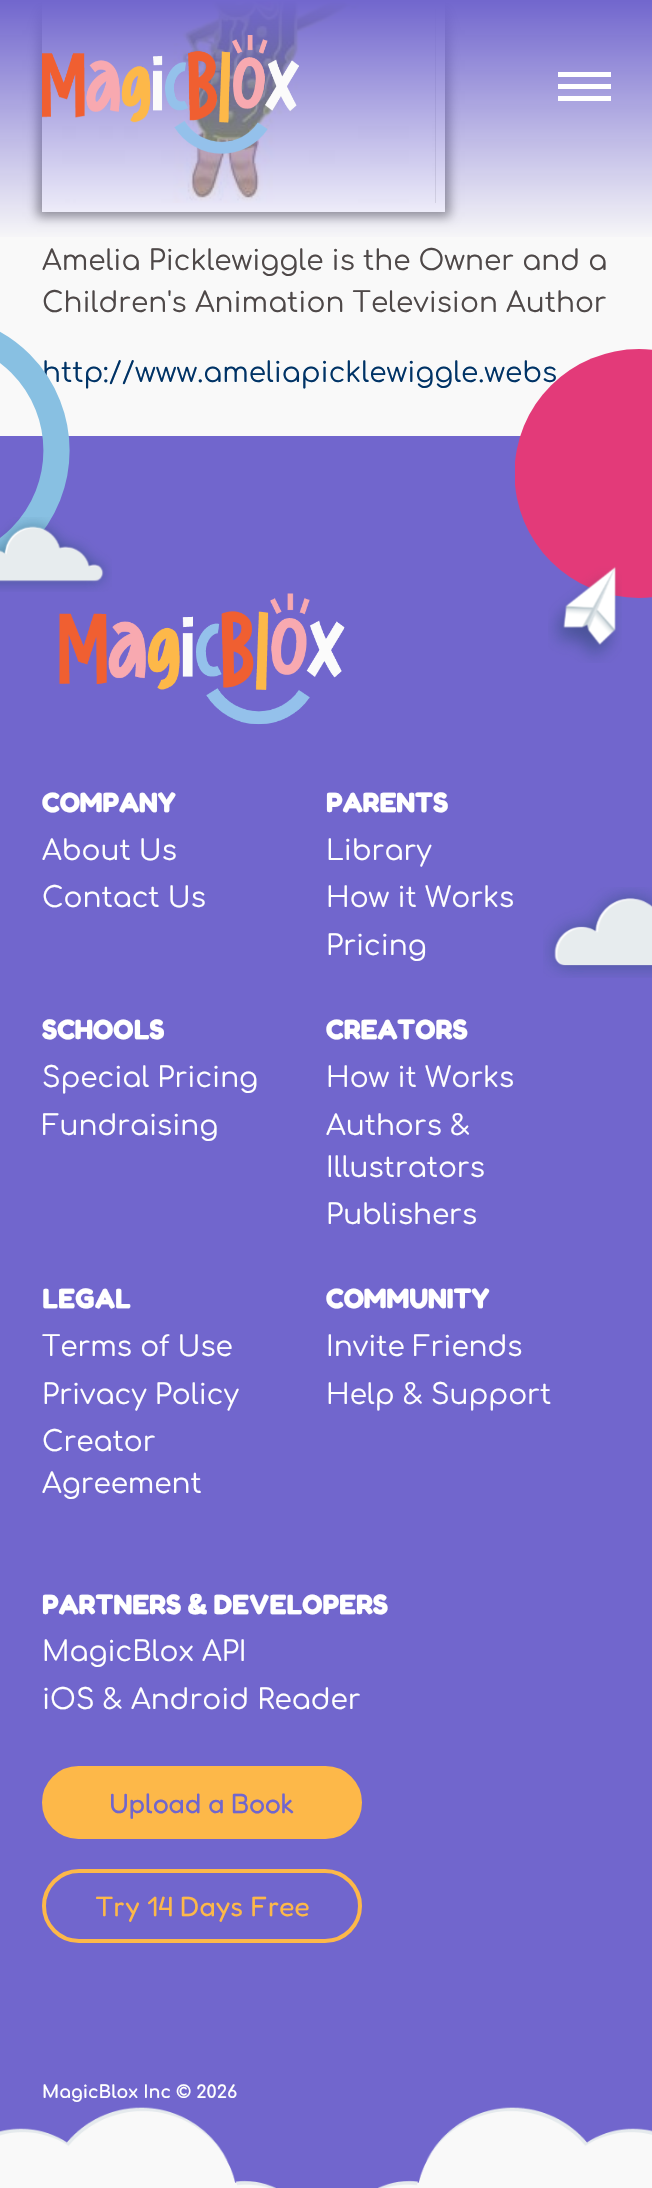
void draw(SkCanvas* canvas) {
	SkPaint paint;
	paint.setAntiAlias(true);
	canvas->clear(0xfff9f9f9);
	paint.setColor(0x66000000);
	paint.setMaskFilter(SkMaskFilter::MakeBlur(kNormal_SkBlurStyle, 5));
	canvas->drawRect(SkRect::MakeXYWH(37, -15, 413, 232), paint);
	paint.setMaskFilter(nullptr);
	paint.setStroke(true);
	paint.setStrokeWidth(9);
	paint.setColor(0xffffffff);
	canvas->drawRect(SkRect::MakeXYWH(46.5, -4.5, 394, 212), paint);
	canvas->drawImageRect(SkImages::DeferredFromEncodedData(SkData::MakeFromFileName("img2.png")), SkRect::MakeXYWH(51, 1, 385, 202), SkSamplingOptions());
	paint.setStroke(false);
	{
		const SkColor colors[] = {0xff7166cd, 0x007166cd};
		const float stops[] = {0, 1};
		const SkPoint ends[] = {{326, 0}, {326, 242}};
		paint.setShader(SkGradientShader::MakeLinear(ends, colors, stops, 2, SkTileMode::kClamp));
		paint.setAlpha(255);
	}
	canvas->drawRect(SkRect::MakeXYWH(0, 0, 652, 237), paint);
	canvas->drawImageRect(SkImages::DeferredFromEncodedData(SkData::MakeFromFileName("img1.png")), SkRect::MakeXYWH(42, 35, 257, 119), SkSamplingOptions());
	paint.setShader(nullptr);
	paint.setColor(0xffffffff);
	canvas->drawRect(SkRect::MakeXYWH(558, 72, 53, 5), paint);
	canvas->drawRect(SkRect::MakeXYWH(558, 84, 53, 5), paint);
	canvas->drawRect(SkRect::MakeXYWH(558, 96, 53, 5), paint);
	SkFont f1(fontMgr->matchFamilyStyle("Comfortaa", SkFontStyle::Normal()), 28);
	f1.setSubpixel(true);
	paint.setColor(0xff4e4848);
	canvas->drawString("Amelia Picklewiggle is the Owner and a", 42, 270, f1, paint);
	canvas->drawString("Children's Animation Television Author", 42, 312, f1, paint);
	paint.setColor(0xff003366);
	canvas->drawString("http://www.ameliapicklewiggle.webs", 42, 382, f1, paint);
	paint.setColor(0xff7166cd);
	canvas->drawRect(SkRect::MakeXYWH(0, 436, 652, 1752), paint);
	paint.setStroke(true);
	paint.setStrokeWidth(26.2);
	paint.setColor(0xff88c0e2);
	canvas->drawCircle(-66.5, 450.5, 123, paint);
	canvas->drawImageRect(SkImages::DeferredFromEncodedData(SkData::MakeFromFileName("img3.png")), SkRect::MakeXYWH(0, 517, 112, 75), SkSamplingOptions());
	canvas->save();
	canvas->clipRect(SkRect::MakeXYWH(515, 348, 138, 251));
	paint.setStroke(false);
	paint.setColor(0xffe33a79);
	canvas->drawCircle(639, 473.5, 124.5, paint);
	canvas->restore();
	canvas->drawImageRect(SkImages::DeferredFromEncodedData(SkData::MakeFromFileName("img4.png")), SkRect::MakeXYWH(548, 566, 74, 97), SkSamplingOptions());
	canvas->drawImageRect(SkImages::DeferredFromEncodedData(SkData::MakeFromFileName("img5.png")), SkRect::MakeXYWH(543, 887, 109, 91), SkSamplingOptions());
	canvas->drawImageRect(SkImages::DeferredFromEncodedData(SkData::MakeFromFileName("img6.png")), SkRect::MakeXYWH(59, 593, 286, 132), SkSamplingOptions());
	SkFont f2(fontMgr->matchFamilyStyle("Fredoka", SkFontStyle::Bold()), 28);
	f2.setSubpixel(true);
	paint.setColor(0xffffffff);
	canvas->drawString("COMPANY", 42, 812, f2, paint);
	canvas->drawString("About Us", 42, 860, f1, paint);
	canvas->drawString("Contact Us", 42, 907, f1, paint);
	canvas->drawString("PARENTS", 326, 812, f2, paint);
	canvas->drawString("Library", 326, 860, f1, paint);
	canvas->drawString("How it Works", 326, 907, f1, paint);
	canvas->drawString("Pricing", 326, 955, f1, paint);
	canvas->drawString("SCHOOLS", 42, 1039, f2, paint);
	canvas->drawString("Special Pricing", 42, 1087, f1, paint);
	canvas->drawString("Fundraising", 42, 1135, f1, paint);
	canvas->drawString("CREATORS", 326, 1039, f2, paint);
	canvas->drawString("How it Works", 326, 1087, f1, paint);
	canvas->drawString("Authors &", 326, 1135, f1, paint);
	canvas->drawString("Illustrators", 326, 1177, f1, paint);
	canvas->drawString("Publishers", 326, 1224, f1, paint);
	canvas->drawString("LEGAL", 42, 1308, f2, paint);
	canvas->drawString("Terms of Use", 42, 1356, f1, paint);
	canvas->drawString("Privacy Policy", 42, 1404, f1, paint);
	canvas->drawString("Creator", 42, 1451, f1, paint);
	canvas->drawString("Agreement", 42, 1493, f1, paint);
	canvas->drawString("COMMUNITY", 326, 1308, f2, paint);
	canvas->drawString("Invite Friends", 326, 1356, f1, paint);
	canvas->drawString("Help & Support", 326, 1404, f1, paint);
	canvas->drawString("PARTNERS & DEVELOPERS", 42, 1614, f2, paint);
	canvas->drawString("MagicBlox API", 42, 1661, f1, paint);
	canvas->drawString("iOS & Android Reader", 42, 1709, f1, paint);
	paint.setColor(0xfffdb849);
	canvas->drawRoundRect(SkRect::MakeXYWH(44, 1768, 316, 69), 34.5, 34.5, paint);
	paint.setStroke(true);
	paint.setStrokeWidth(4);
	canvas->drawRoundRect(SkRect::MakeXYWH(44, 1768, 316, 69), 34.5, 34.5, paint);
	SkFont f3(fontMgr->matchFamilyStyle("Fredoka", SkFontStyle::Normal()), 28);
	f3.setSubpixel(true);
	paint.setStroke(false);
	paint.setColor(0xff7166cd);
	canvas->drawString("Upload a Book", 109, 1813, f3, paint);
	paint.setStroke(true);
	paint.setColor(0xfffdb849);
	canvas->drawRoundRect(SkRect::MakeXYWH(44, 1871, 316, 70), 35, 35, paint);
	paint.setStroke(false);
	canvas->drawString("Try 14 Days Free", 95, 1916, f3, paint);
	SkFont f4(fontMgr->matchFamilyStyle("Comfortaa", SkFontStyle::Bold()), 17.5);
	f4.setSubpixel(true);
	paint.setColor(0xffffffff);
	canvas->drawString("MagicBlox Inc © 2026", 42, 2098, f4, paint);
	canvas->drawImageRect(SkImages::DeferredFromEncodedData(SkData::MakeFromFileName("img7.png")), SkRect::MakeXYWH(0, 2107, 276, 81), SkSamplingOptions());
	canvas->drawImageRect(SkImages::DeferredFromEncodedData(SkData::MakeFromFileName("img8.png")), SkRect::MakeXYWH(378, 2107, 274, 81), SkSamplingOptions());
}
